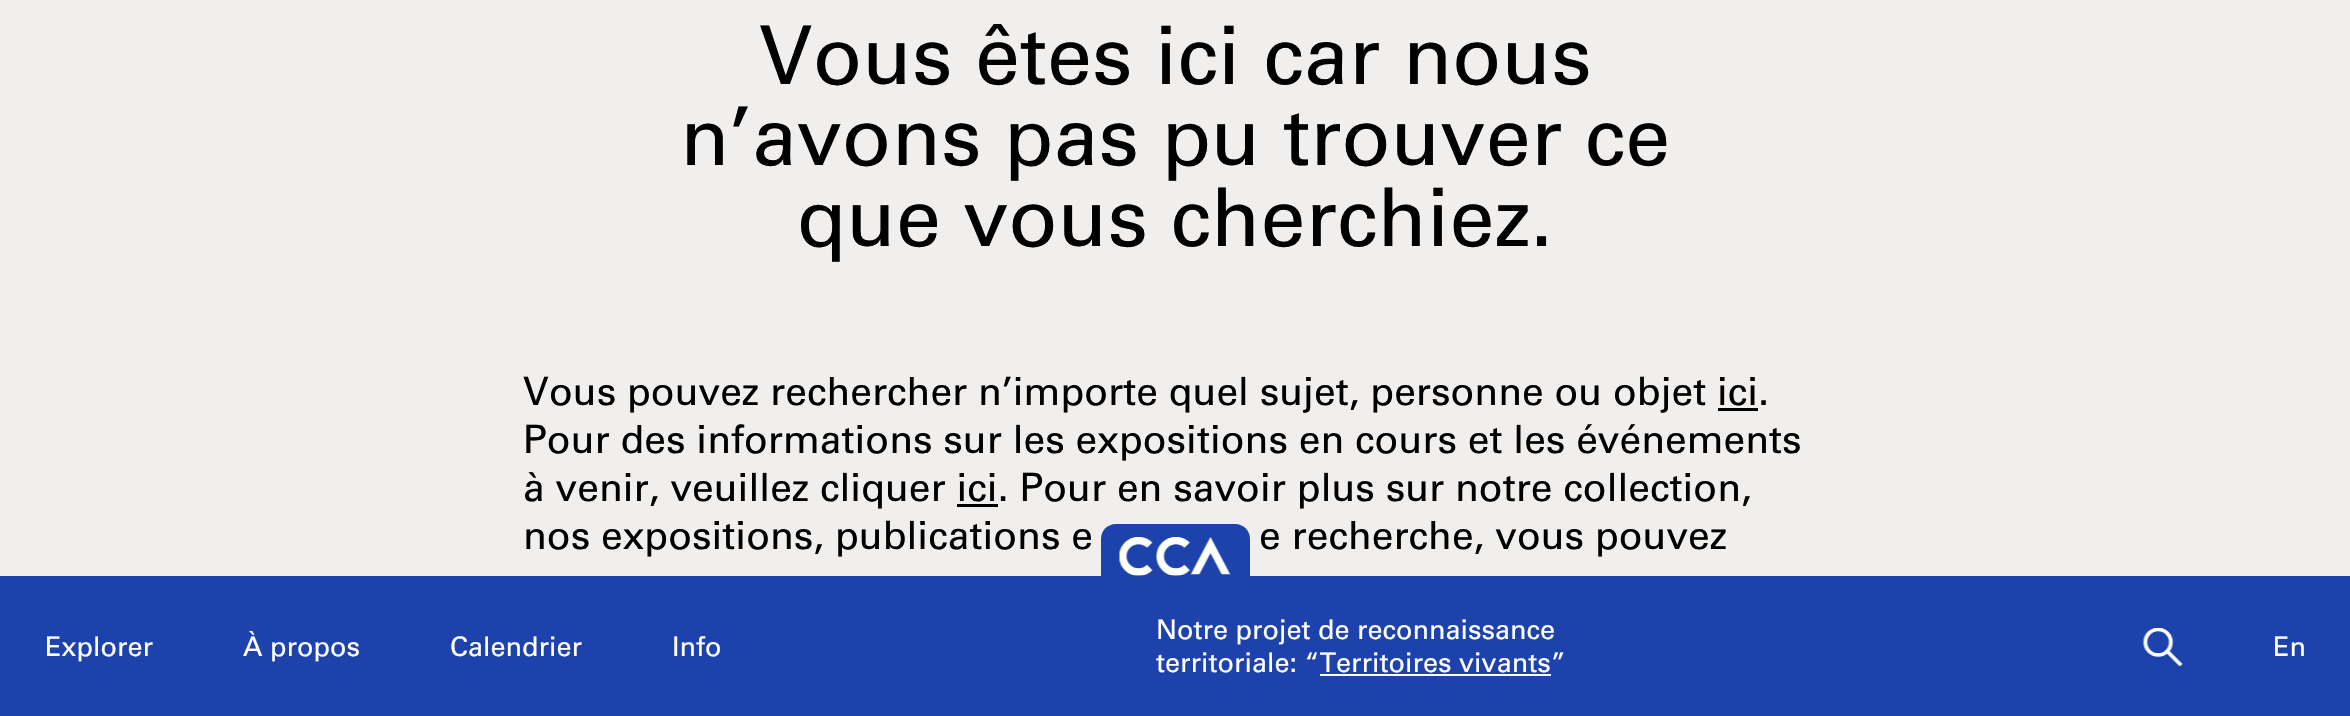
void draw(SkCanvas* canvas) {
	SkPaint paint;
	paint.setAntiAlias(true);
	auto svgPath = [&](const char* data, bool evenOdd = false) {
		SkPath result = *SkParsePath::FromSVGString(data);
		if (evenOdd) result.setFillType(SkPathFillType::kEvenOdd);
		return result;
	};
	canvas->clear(0xfff1efed);
	SkFont f1(fontMgr->matchFamilyStyle("Univers", SkFontStyle::Normal()), 81);
	f1.setSubpixel(true);
	paint.setColor(0xff000000);
	canvas->drawString("Vous êtes ici car nous", 759, 84, f1, paint);
	canvas->drawString("n’avons pas pu trouver ce", 680, 165, f1, paint);
	canvas->drawString("que vous cherchiez.", 797, 246, f1, paint);
	SkFont f2(fontMgr->matchFamilyStyle("Univers", SkFontStyle::Normal()), 39);
	f2.setSubpixel(true);
	canvas->drawString("Vous pouvez rechercher n’importe quel sujet, personne ou objet ici.", 523, 405, f2, paint);
	canvas->drawRect(SkRect::MakeXYWH(1718, 408, 40, 3), paint);
	canvas->drawString("Pour des informations sur les expositions en cours et les événements", 523, 453, f2, paint);
	canvas->drawString("à venir, veuillez cliquer ici. Pour en savoir plus sur notre collection,", 523, 501, f2, paint);
	canvas->drawRect(SkRect::MakeXYWH(957, 504, 41, 3), paint);
	canvas->drawString("nos expositions, publications e", 523, 549, f2, paint);
	canvas->drawString("e recherche, vous pouvez", 1259, 549, f2, paint);
	paint.setColor(0xff1d42ac);
	canvas->drawRect(SkRect::MakeXYWH(0, 576, 2350, 140), paint);
	canvas->drawPath(svgPath("M1116 524H1235C1243.5 524 1250 530.5 1250 539V576H1101V539C1101 530.5 1107.5 524 1116 524Z"), paint);
	canvas->drawImageRect(SkImages::DeferredFromEncodedData(SkData::MakeFromFileName("img1.png")), SkRect::MakeXYWH(1119, 537, 112, 39), SkSamplingOptions());
	SkFont f3(fontMgr->matchFamilyStyle("Univers", SkFontStyle::Normal()), 27);
	f3.setSubpixel(true);
	paint.setColor(0xffffffff);
	canvas->drawString("Explorer", 45, 656, f3, paint);
	canvas->drawString("À propos", 243, 656, f3, paint);
	canvas->drawString("Calendrier", 450, 656, f3, paint);
	canvas->drawString("Info", 672, 656, f3, paint);
	canvas->drawString("Notre projet de reconnaissance", 1156, 639, f3, paint);
	canvas->drawString("territoriale: “Territoires vivants”", 1156, 672, f3, paint);
	canvas->drawRect(SkRect::MakeXYWH(1320, 674, 231, 2), paint);
	canvas->drawImageRect(SkImages::DeferredFromEncodedData(SkData::MakeFromFileName("img2.png")), SkRect::MakeXYWH(2143, 628, 40, 39), SkSamplingOptions());
	canvas->drawString("En", 2273, 656, f3, paint);
}
